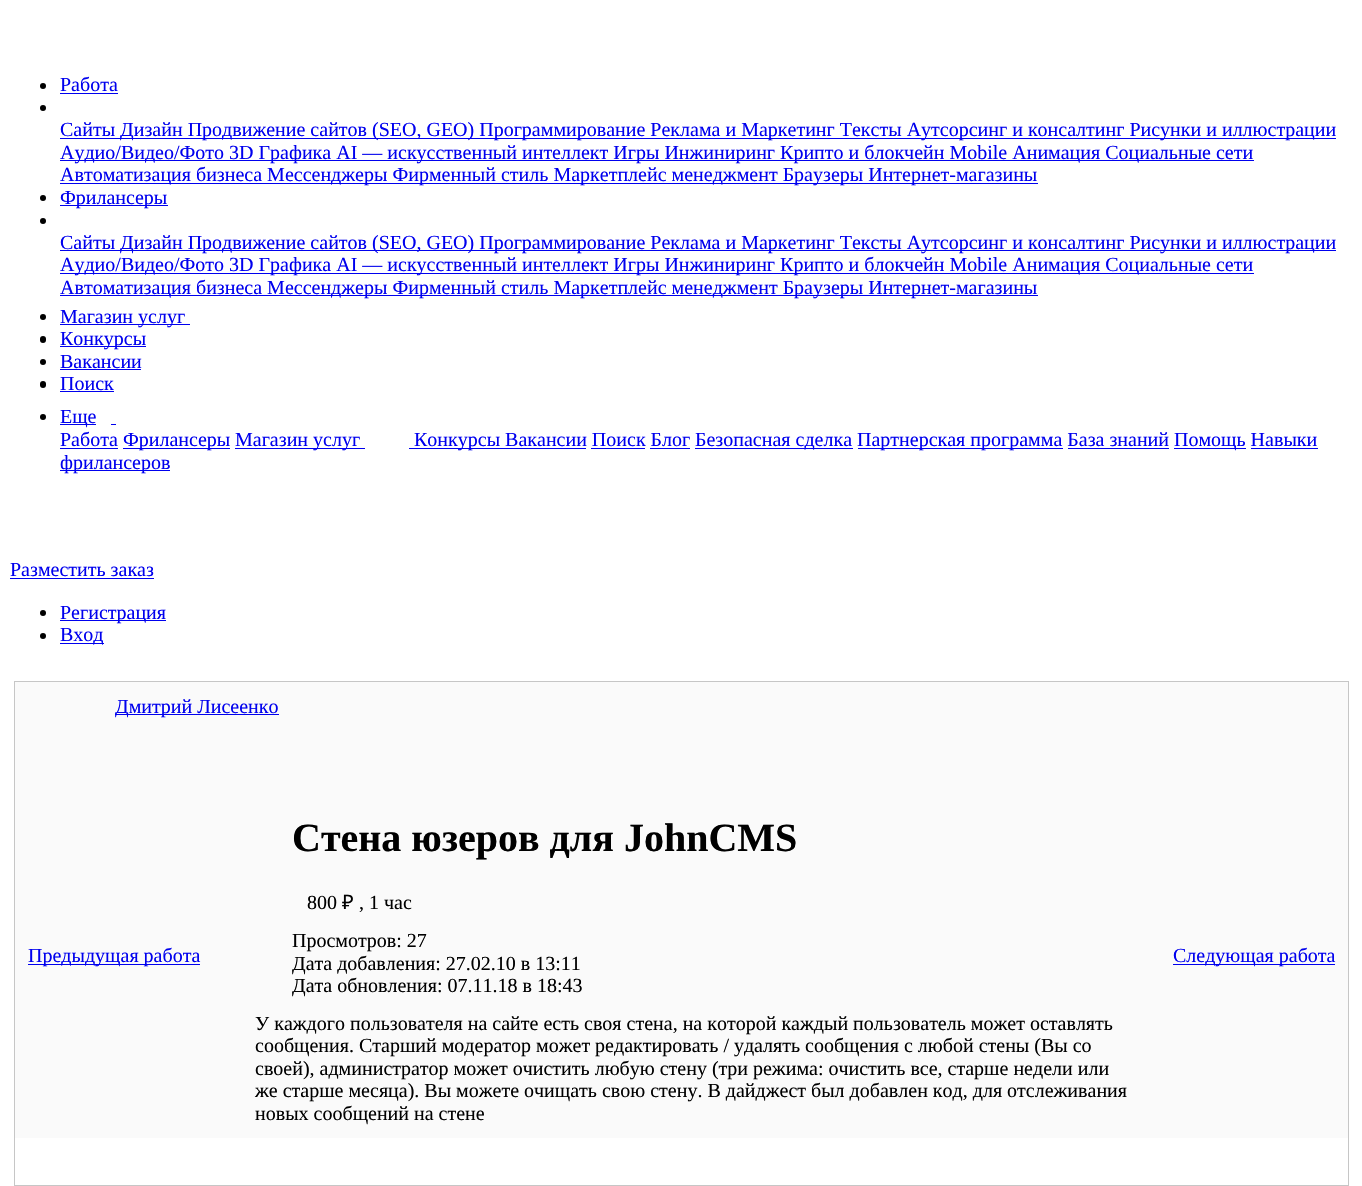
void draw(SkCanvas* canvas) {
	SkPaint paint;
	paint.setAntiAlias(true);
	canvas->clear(0xffffffff);
	paint.setColor(0xff000000);
	canvas->drawCircle(43, 86, 3, paint);
	SkFont f1(fontMgr->matchFamilyStyle("Liberation Serif", SkFontStyle::Normal()), 20);
	f1.setSubpixel(true);
	paint.setColor(0xff0000ee);
	canvas->drawString("Работа", 60, 91, f1, paint);
	canvas->drawRect(SkRect::MakeXYWH(60, 93, 58, 1), paint);
	paint.setColor(0xff000000);
	canvas->drawCircle(43, 108, 3, paint);
	paint.setColor(0xff0000ee);
	canvas->drawRect(SkRect::MakeXYWH(60, 138, 1276, 1), paint);
	canvas->drawString("Сайты Дизайн Продвижение сайтов (SEO, GEO) Программирование Реклама и Маркетинг Тексты Аутсорсинг и консалтинг Рисунки и иллюстрации", 60, 136, f1, paint);
	canvas->drawRect(SkRect::MakeXYWH(60, 160, 1194, 1), paint);
	canvas->drawString("Аудио/Видео/Фото 3D Графика AI — искусственный интеллект Игры Инжиниринг Крипто и блокчейн Mobile Анимация Социальные сети", 60, 159, f1, paint);
	canvas->drawRect(SkRect::MakeXYWH(60, 183, 978, 1), paint);
	canvas->drawString("Автоматизация бизнеса Мессенджеры Фирменный стиль Маркетплейс менеджмент Браузеры Интернет-магазины", 60, 181, f1, paint);
	paint.setColor(0xff000000);
	canvas->drawCircle(43, 198, 3, paint);
	paint.setColor(0xff0000ee);
	canvas->drawRect(SkRect::MakeXYWH(60, 205, 108, 1), paint);
	canvas->drawString("Фрилансеры", 60, 204, f1, paint);
	paint.setColor(0xff000000);
	canvas->drawCircle(43, 221, 3, paint);
	paint.setColor(0xff0000ee);
	canvas->drawRect(SkRect::MakeXYWH(60, 250, 1276, 1), paint);
	canvas->drawString("Сайты Дизайн Продвижение сайтов (SEO, GEO) Программирование Реклама и Маркетинг Тексты Аутсорсинг и консалтинг Рисунки и иллюстрации", 60, 249, f1, paint);
	canvas->drawRect(SkRect::MakeXYWH(60, 273, 1194, 1), paint);
	canvas->drawString("Аудио/Видео/Фото 3D Графика AI — искусственный интеллект Игры Инжиниринг Крипто и блокчейн Mobile Анимация Социальные сети", 60, 271, f1, paint);
	canvas->drawRect(SkRect::MakeXYWH(60, 295, 978, 1), paint);
	canvas->drawString("Автоматизация бизнеса Мессенджеры Фирменный стиль Маркетплейс менеджмент Браузеры Интернет-магазины", 60, 294, f1, paint);
	paint.setColor(0xff000000);
	canvas->drawCircle(43, 317, 3, paint);
	paint.setColor(0xff0000ee);
	canvas->drawRect(SkRect::MakeXYWH(60, 324, 130, 1), paint);
	canvas->drawString("Магазин услуг", 60, 323, f1, paint);
	paint.setColor(0xff000000);
	canvas->drawRoundRect(SkRect::MakeXYWH(40, 336, 6, 7), 3, 3, paint);
	paint.setColor(0xff0000ee);
	canvas->drawRect(SkRect::MakeXYWH(60, 346, 86, 1), paint);
	canvas->drawString("Конкурсы", 60, 345, f1, paint);
	paint.setColor(0xff000000);
	canvas->drawCircle(43, 362, 3, paint);
	paint.setColor(0xff0000ee);
	canvas->drawString("Вакансии", 60, 368, f1, paint);
	canvas->drawRect(SkRect::MakeXYWH(60, 369, 81, 1), paint);
	paint.setColor(0xff000000);
	canvas->drawRoundRect(SkRect::MakeXYWH(40, 381, 6, 7), 3, 3, paint);
	paint.setColor(0xff0000ee);
	canvas->drawString("Поиск", 60, 390, f1, paint);
	canvas->drawRect(SkRect::MakeXYWH(60, 391, 54, 1), paint);
	paint.setColor(0xff000000);
	canvas->drawCircle(43, 417, 3, paint);
	paint.setColor(0xff0000ee);
	canvas->drawRect(SkRect::MakeXYWH(60, 424, 36, 1), paint);
	canvas->drawString("Еще", 60, 423, f1, paint);
	canvas->drawRect(SkRect::MakeXYWH(111, 424, 5, 1), paint);
	canvas->drawString("Работа", 60, 446, f1, paint);
	canvas->drawRect(SkRect::MakeXYWH(60, 448, 58, 1), paint);
	canvas->drawRect(SkRect::MakeXYWH(123, 448, 107, 1), paint);
	canvas->drawString("Фрилансеры", 123, 446, f1, paint);
	canvas->drawRect(SkRect::MakeXYWH(235, 448, 130, 1), paint);
	canvas->drawString("Магазин услуг", 235, 446, f1, paint);
	canvas->drawRect(SkRect::MakeXYWH(409, 448, 177, 1), paint);
	canvas->drawString("Конкурсы Вакансии Поиск Блог", 414, 446, f1, paint);
	canvas->drawRect(SkRect::MakeXYWH(695, 448, 158, 1), paint);
	canvas->drawString("Безопасная сделка", 695, 446, f1, paint);
	canvas->drawRect(SkRect::MakeXYWH(858, 448, 205, 1), paint);
	canvas->drawString("Партнерская программа База знаний", 857, 446, f1, paint);
	canvas->drawRect(SkRect::MakeXYWH(1174, 448, 72, 1), paint);
	canvas->drawString("Помощь Навыки", 1174, 446, f1, paint);
	canvas->drawRect(SkRect::MakeXYWH(591, 448, 54, 1), paint);
	canvas->drawRect(SkRect::MakeXYWH(650, 448, 40, 1), paint);
	canvas->drawRect(SkRect::MakeXYWH(1068, 448, 101, 1), paint);
	canvas->drawRect(SkRect::MakeXYWH(60, 470, 110, 1), paint);
	canvas->drawString("фрилансеров", 60, 469, f1, paint);
	canvas->drawRect(SkRect::MakeXYWH(1251, 448, 67, 1), paint);
	canvas->drawString("Разместить заказ", 10, 576, f1, paint);
	canvas->drawRect(SkRect::MakeXYWH(10, 578, 144, 1), paint);
	paint.setColor(0xff000000);
	canvas->drawCircle(43, 613, 3, paint);
	paint.setColor(0xff0000ee);
	canvas->drawRect(SkRect::MakeXYWH(60, 620, 106, 1), paint);
	canvas->drawString("Регистрация", 60, 619, f1, paint);
	paint.setColor(0xff000000);
	canvas->drawCircle(43, 636, 3, paint);
	paint.setColor(0xff0000ee);
	canvas->drawRect(SkRect::MakeXYWH(60, 643, 44, 1), paint);
	canvas->drawString("Вход", 60, 641, f1, paint);
	paint.setColor(0xfffafafa);
	canvas->drawRect(SkRect::MakeXYWH(15, 682, 1333, 93), paint);
	paint.setColor(0xffc6c6c6);
	canvas->drawRect(SkRect::MakeXYWH(14, 681, 1335, 1), paint);
	canvas->drawRect(SkRect::MakeXYWH(1348, 681, 1, 505), paint);
	canvas->drawRect(SkRect::MakeXYWH(14, 681, 1, 457), paint);
	paint.setColor(0xff0000ee);
	canvas->drawRect(SkRect::MakeXYWH(115, 714, 164, 1), paint);
	canvas->drawString("Дмитрий Лисеенко", 115, 713, f1, paint);
	paint.setColor(0xfffafafa);
	canvas->drawRect(SkRect::MakeXYWH(15, 775, 1333, 363), paint);
	paint.setColor(0xff0000ee);
	canvas->drawRect(SkRect::MakeXYWH(28, 964, 172, 1), paint);
	canvas->drawString("Предыдущая работа", 28, 962, f1, paint);
	SkFont f2(fontMgr->matchFamilyStyle("Liberation Serif", SkFontStyle::Bold()), 40);
	f2.setSubpixel(true);
	paint.setColor(0xff000000);
	canvas->drawString("Стена юзеров для JohnCMS", 292, 851, f2, paint);
	canvas->drawString("800", 307, 909, f1, paint);
	SkFont f3(fontMgr->matchFamilyStyle("Noto Sans", SkFontStyle::Normal()), 20);
	f3.setSubpixel(true);
	canvas->drawString("₽", 342, 909, f3, paint);
	canvas->drawString(", 1 час", 359, 909, f1, paint);
	canvas->drawString("Просмотров: 27", 292, 947, f1, paint);
	canvas->drawString("Дата добавления: 27.02.10 в 13:11", 292, 970, f1, paint);
	canvas->drawString("Дата обновления: 07.11.18 в 18:43", 292, 992, f1, paint);
	canvas->drawString("У каждого пользователя на сайте есть своя стена, на которой каждый пользователь может оставлять", 255, 1030, f1, paint);
	canvas->drawString("сообщения. Старший модератор может редактировать / удалять сообщения с любой стены (Вы со", 255, 1052, f1, paint);
	canvas->drawString("своей), администратор может очистить любую стену (три режима: очистить все, старше недели или", 255, 1075, f1, paint);
	canvas->drawString("же старше месяца). Вы можете очищать свою стену. В дайджест был добавлен код, для отслеживания", 255, 1097, f1, paint);
	canvas->drawString("новых сообщений на стене", 255, 1120, f1, paint);
	paint.setColor(0xff0000ee);
	canvas->drawRect(SkRect::MakeXYWH(1173, 964, 162, 1), paint);
	canvas->drawString("Следующая работа", 1173, 962, f1, paint);
	paint.setColor(0xffc6c6c6);
	canvas->drawRect(SkRect::MakeXYWH(14, 1185, 1335, 1), paint);
	canvas->drawRect(SkRect::MakeXYWH(14, 1138, 1, 48), paint);
}
